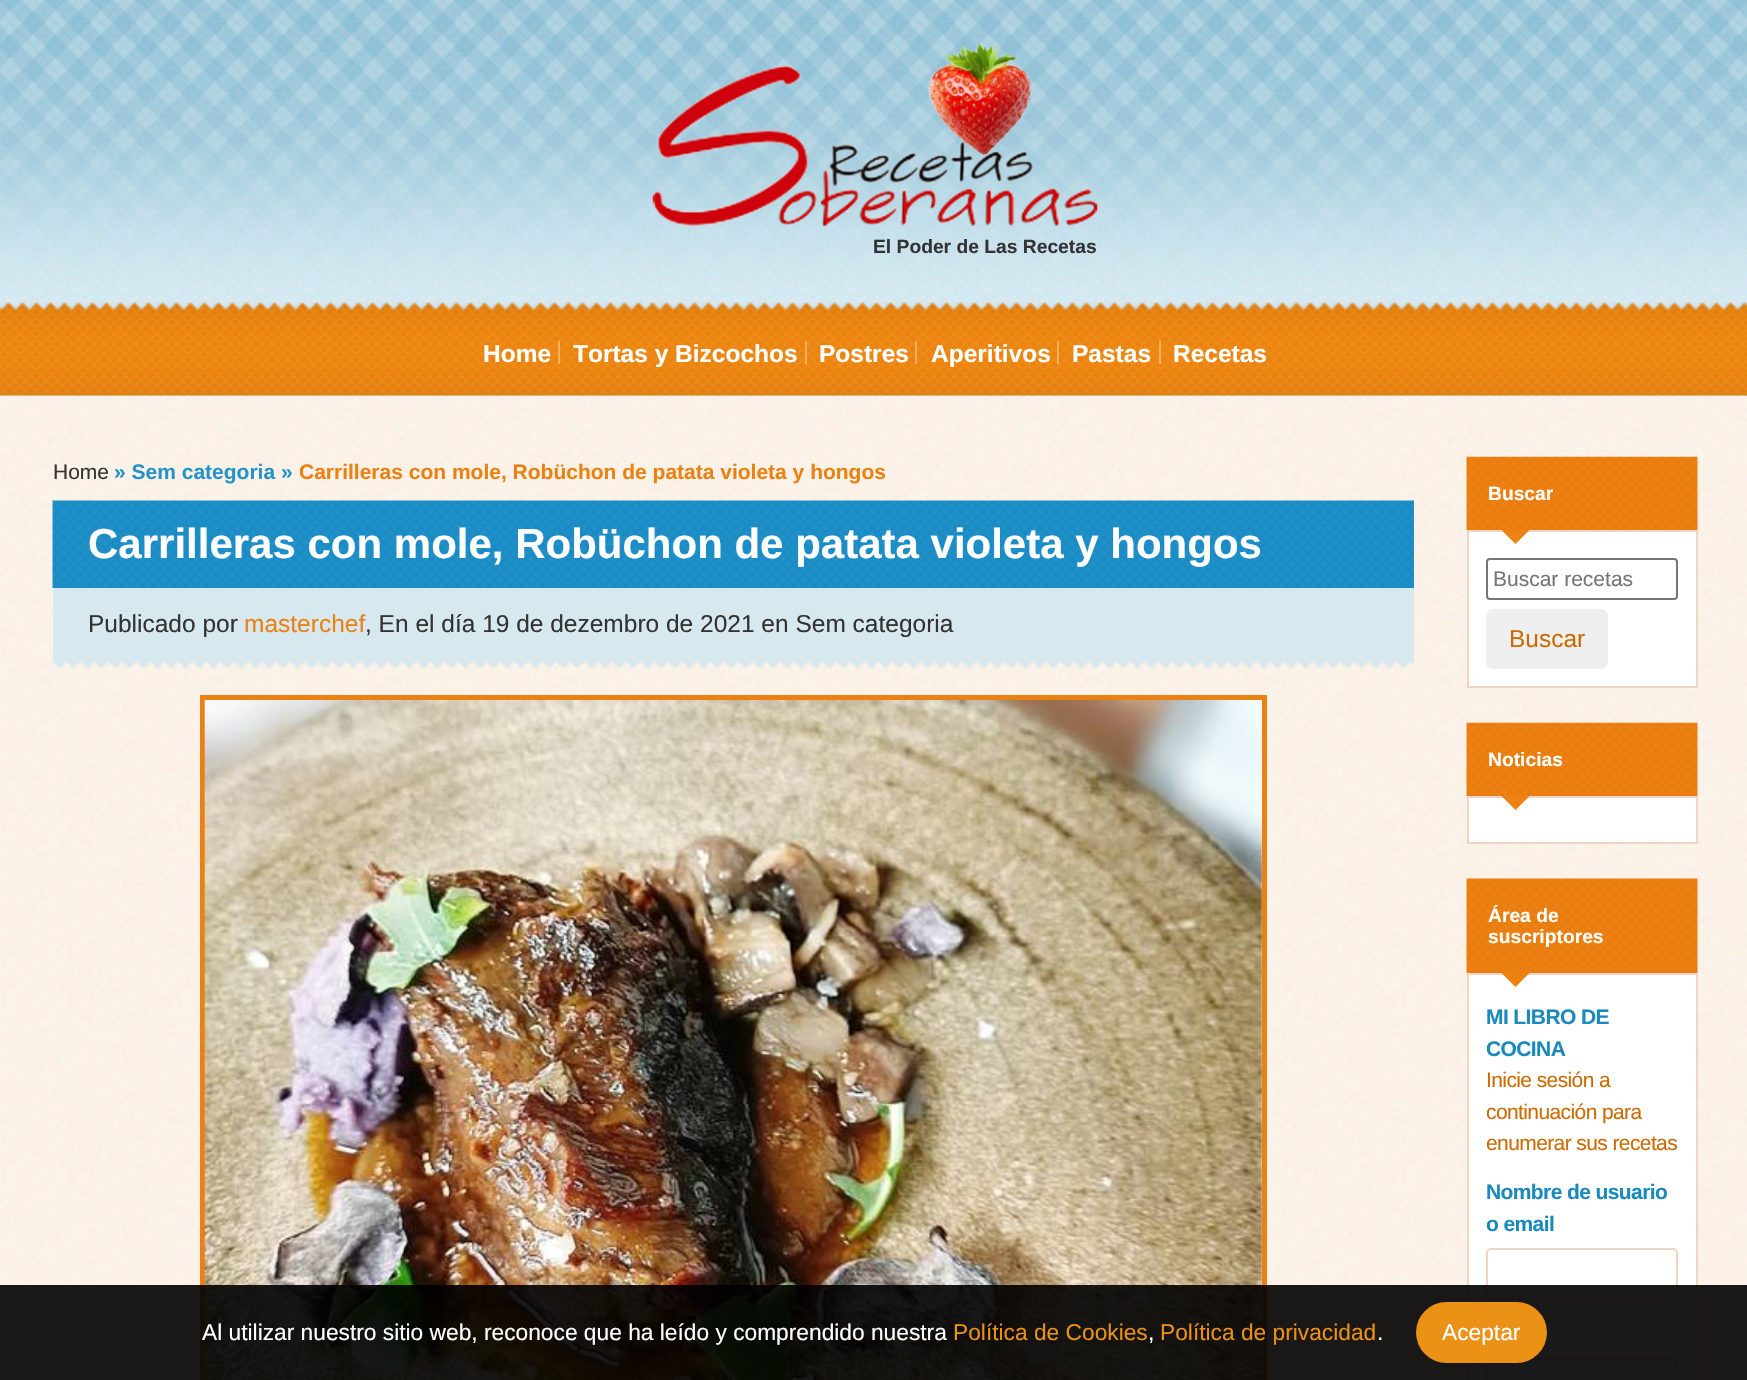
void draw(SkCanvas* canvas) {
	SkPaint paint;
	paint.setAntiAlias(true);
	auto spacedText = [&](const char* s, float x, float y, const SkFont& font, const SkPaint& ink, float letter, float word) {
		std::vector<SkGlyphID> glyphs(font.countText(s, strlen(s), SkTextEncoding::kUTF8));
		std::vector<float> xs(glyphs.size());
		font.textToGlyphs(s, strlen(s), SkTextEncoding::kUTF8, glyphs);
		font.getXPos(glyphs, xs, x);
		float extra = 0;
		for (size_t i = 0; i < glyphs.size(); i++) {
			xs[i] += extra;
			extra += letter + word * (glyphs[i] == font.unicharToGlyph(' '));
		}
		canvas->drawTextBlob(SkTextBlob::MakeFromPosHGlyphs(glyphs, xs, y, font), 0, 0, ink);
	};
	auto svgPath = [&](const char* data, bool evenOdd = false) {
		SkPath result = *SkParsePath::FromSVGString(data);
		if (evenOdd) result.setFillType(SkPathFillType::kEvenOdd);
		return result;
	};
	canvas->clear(0xffffffff);
	canvas->drawImageRect(SkImages::DeferredFromEncodedData(SkData::MakeFromFileName("img1.png")), SkRect::MakeXYWH(0, 396, 1747, 984), SkSamplingOptions());
	canvas->drawImageRect(SkImages::DeferredFromEncodedData(SkData::MakeFromFileName("img2.png")), SkRect::MakeXYWH(0, 0, 1747, 301), SkSamplingOptions());
	canvas->drawImageRect(SkImages::DeferredFromEncodedData(SkData::MakeFromFileName("img3.png")), SkRect::MakeXYWH(652, 43, 446, 185), SkSamplingOptions());
	SkFont f1(fontMgr->matchFamilyStyle("Liberation Sans", SkFontStyle::Bold()), 19.25);
	f1.setSubpixel(true);
	paint.setColor(0xff333333);
	canvas->drawString("El Poder de Las Recetas", 873, 253, f1, paint);
	paint.setColor(0xffd7e8ef);
	canvas->drawRect(SkRect::MakeXYWH(0, 301, 1747, 95), paint);
	canvas->drawImageRect(SkImages::DeferredFromEncodedData(SkData::MakeFromFileName("img4.png")), SkRect::MakeXYWH(0, 302, 1747, 94), SkSamplingOptions());
	SkFont f2(fontMgr->matchFamilyStyle("Liberation Sans", SkFontStyle::Bold()), 24.5);
	f2.setSubpixel(true);
	paint.setColor(0xffffffff);
	canvas->drawString("Home", 483, 362, f2, paint);
	paint.setColor(0xfff9ae60);
	canvas->drawRect(SkRect::MakeXYWH(558, 341, 2, 23), paint);
	paint.setColor(0xffffffff);
	canvas->drawString("Tortas y Bizcochos", 573, 362, f2, paint);
	paint.setColor(0xfff9ae60);
	canvas->drawRect(SkRect::MakeXYWH(805, 341, 2, 23), paint);
	paint.setColor(0xffffffff);
	canvas->drawString("Postres", 819, 362, f2, paint);
	paint.setColor(0xfff9ae60);
	canvas->drawRect(SkRect::MakeXYWH(915, 341, 2, 23), paint);
	paint.setColor(0xffffffff);
	canvas->drawString("Aperitivos", 931, 362, f2, paint);
	paint.setColor(0xfff9ae60);
	canvas->drawRect(SkRect::MakeXYWH(1057, 341, 2, 23), paint);
	paint.setColor(0xffffffff);
	canvas->drawString("Pastas", 1072, 362, f2, paint);
	paint.setColor(0xfff9ae60);
	canvas->drawRect(SkRect::MakeXYWH(1159, 341, 2, 23), paint);
	paint.setColor(0xffffffff);
	canvas->drawString("Recetas", 1173, 362, f2, paint);
	SkFont f3(fontMgr->matchFamilyStyle("Liberation Sans", SkFontStyle::Normal()), 21);
	f3.setSubpixel(true);
	paint.setColor(0xff333333);
	canvas->drawString("Home", 53, 479, f3, paint);
	SkFont f4(fontMgr->matchFamilyStyle("Liberation Sans", SkFontStyle::Bold()), 21);
	f4.setSubpixel(true);
	paint.setColor(0xff2394c8);
	canvas->drawString("» Sem categoria »", 114, 479, f4, paint);
	paint.setColor(0xffea8112);
	canvas->drawString("Carrilleras con mole, Robüchon de patata violeta y hongos", 299, 479, f4, paint);
	canvas->drawImageRect(SkImages::DeferredFromEncodedData(SkData::MakeFromFileName("img5.png")), SkRect::MakeXYWH(52, 500, 1362, 88), SkSamplingOptions());
	SkFont f5(fontMgr->matchFamilyStyle("Liberation Sans", SkFontStyle::Bold()), 42);
	f5.setSubpixel(true);
	paint.setColor(0xffffffff);
	canvas->drawString("Carrilleras con mole, Robüchon de patata violeta y hongos", 88, 558, f5, paint);
	paint.setColor(0xffd7e8ef);
	canvas->drawRect(SkRect::MakeXYWH(53, 588, 1361, 72), paint);
	SkFont f6(fontMgr->matchFamilyStyle("Liberation Sans", SkFontStyle::Normal()), 24.5);
	f6.setSubpixel(true);
	paint.setColor(0xff333333);
	canvas->drawString("Publicado por", 88, 632, f6, paint);
	paint.setColor(0xffea8112);
	canvas->drawString("masterchef", 244, 632, f6, paint);
	paint.setColor(0xff333333);
	canvas->drawString(", En el día 19 de dezembro de 2021 en Sem categoria", 365, 632, f6, paint);
	canvas->drawImageRect(SkImages::DeferredFromEncodedData(SkData::MakeFromFileName("img6.png")), SkRect::MakeXYWH(52, 659, 1362, 10), SkSamplingOptions());
	paint.setStroke(true);
	paint.setStrokeWidth(5);
	paint.setColor(0xffea8112);
	canvas->drawRect(SkRect::MakeXYWH(202.5, 697.5, 1062, 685), paint);
	canvas->drawImageRect(SkImages::DeferredFromEncodedData(SkData::MakeFromFileName("img7.png")), SkRect::MakeXYWH(204, 700, 1058, 680), SkSamplingOptions());
	canvas->drawImageRect(SkImages::DeferredFromEncodedData(SkData::MakeFromFileName("img8.png")), SkRect::MakeXYWH(1466, 456, 232, 75), SkSamplingOptions());
	paint.setStroke(false);
	paint.setColor(0xffffffff);
	canvas->drawString("Buscar", 1488, 500, f1, paint);
	canvas->drawRect(SkRect::MakeXYWH(1468, 531, 229, 156), paint);
	paint.setStroke(true);
	paint.setStrokeWidth(2);
	paint.setColor(0xfff1d5c4);
	canvas->drawRect(SkRect::MakeXYWH(1468, 531, 229, 156), paint);
	paint.setStroke(false);
	paint.setColor(0xffeb8212);
	canvas->drawPath(svgPath("M1501.5 530H1529.5L1515.5 544Z"), paint);
	paint.setStroke(true);
	paint.setColor(0xff767676);
	canvas->drawRoundRect(SkRect::MakeXYWH(1487, 559, 190, 40), 3, 3, paint);
	paint.setStroke(false);
	paint.setColor(0xff757575);
	canvas->drawString("Buscar recetas", 1493, 586, f3, paint);
	paint.setColor(0xffefefef);
	canvas->drawRoundRect(SkRect::MakeXYWH(1486, 609, 122, 60), 7, 7, paint);
	paint.setColor(0xffcd6b03);
	canvas->drawString("Buscar", 1509, 647, f6, paint);
	canvas->drawImageRect(SkImages::DeferredFromEncodedData(SkData::MakeFromFileName("img9.png")), SkRect::MakeXYWH(1466, 722, 232, 75), SkSamplingOptions());
	paint.setColor(0xffffffff);
	canvas->drawString("Noticias", 1488, 766, f1, paint);
	canvas->drawRect(SkRect::MakeXYWH(1468, 797, 229, 46), paint);
	paint.setStroke(true);
	paint.setColor(0xfff1d5c4);
	canvas->drawRect(SkRect::MakeXYWH(1468, 797, 229, 46), paint);
	paint.setStroke(false);
	paint.setColor(0xffeb8212);
	canvas->drawPath(svgPath("M1501.5 796H1529.5L1515.5 810Z"), paint);
	canvas->drawImageRect(SkImages::DeferredFromEncodedData(SkData::MakeFromFileName("img10.png")), SkRect::MakeXYWH(1466, 878, 232, 95), SkSamplingOptions());
	paint.setColor(0xffffffff);
	canvas->drawString("Área de", 1488, 922, f1, paint);
	canvas->drawString("suscriptores", 1488, 943, f1, paint);
	canvas->drawRect(SkRect::MakeXYWH(1468, 974, 229, 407), paint);
	paint.setStroke(true);
	paint.setColor(0xfff1d5c4);
	canvas->drawRect(SkRect::MakeXYWH(1468, 974, 229, 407), paint);
	paint.setStroke(false);
	paint.setColor(0xffeb8212);
	canvas->drawPath(svgPath("M1501.5 973H1529.5L1515.5 987Z"), paint);
	paint.setColor(0xff1a8abd);
	spacedText("MI LIBRO DE", 1486, 1024, f4, paint, -0.6, 0);
	spacedText("COCINA", 1486, 1056, f4, paint, -0.6, 0);
	paint.setColor(0xffcd6b03);
	spacedText("Inicie sesión a", 1486, 1087, f3, paint, -0.6, 0);
	spacedText("continuación para", 1486, 1119, f3, paint, -0.6, 0);
	spacedText("enumerar sus recetas", 1486, 1150, f3, paint, -0.6, 0);
	paint.setColor(0xff1a8abd);
	spacedText("Nombre de usuario", 1486, 1199, f4, paint, -0.6, 0);
	spacedText("o email", 1486, 1231, f4, paint, -0.6, 0);
	paint.setStroke(true);
	paint.setColor(0xfff1d5c4);
	canvas->drawRoundRect(SkRect::MakeXYWH(1487, 1249, 190, 50), 4, 4, paint);
	canvas->drawRoundRect(SkRect::MakeXYWH(1487, 1359, 190, 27), 4, 4, paint);
	paint.setStroke(false);
	paint.setColor(0xe6000000);
	canvas->drawRect(SkRect::MakeXYWH(0, 1285, 1747, 95), paint);
	SkFont f7(fontMgr->matchFamilyStyle("Liberation Sans", SkFontStyle::Normal()), 22.75);
	f7.setSubpixel(true);
	paint.setColor(0xffffffff);
	canvas->drawString("Al utilizar nuestro sitio web, reconoce que ha leído y comprendido nuestra", 202, 1340, f7, paint);
	paint.setColor(0xffeb9115);
	canvas->drawString("Política de Cookies", 953, 1340, f7, paint);
	paint.setColor(0xffffffff);
	canvas->drawString(",", 1148, 1340, f7, paint);
	paint.setColor(0xffeb9115);
	canvas->drawString("Política de privacidad", 1160, 1340, f7, paint);
	paint.setColor(0xffffffff);
	canvas->drawString(".", 1377, 1340, f7, paint);
	paint.setColor(0xffeb9115);
	canvas->drawRoundRect(SkRect::MakeXYWH(1416, 1302, 131, 61), 30.5, 30.5, paint);
	paint.setColor(0xffffffff);
	canvas->drawString("Aceptar", 1442, 1340, f7, paint);
}
